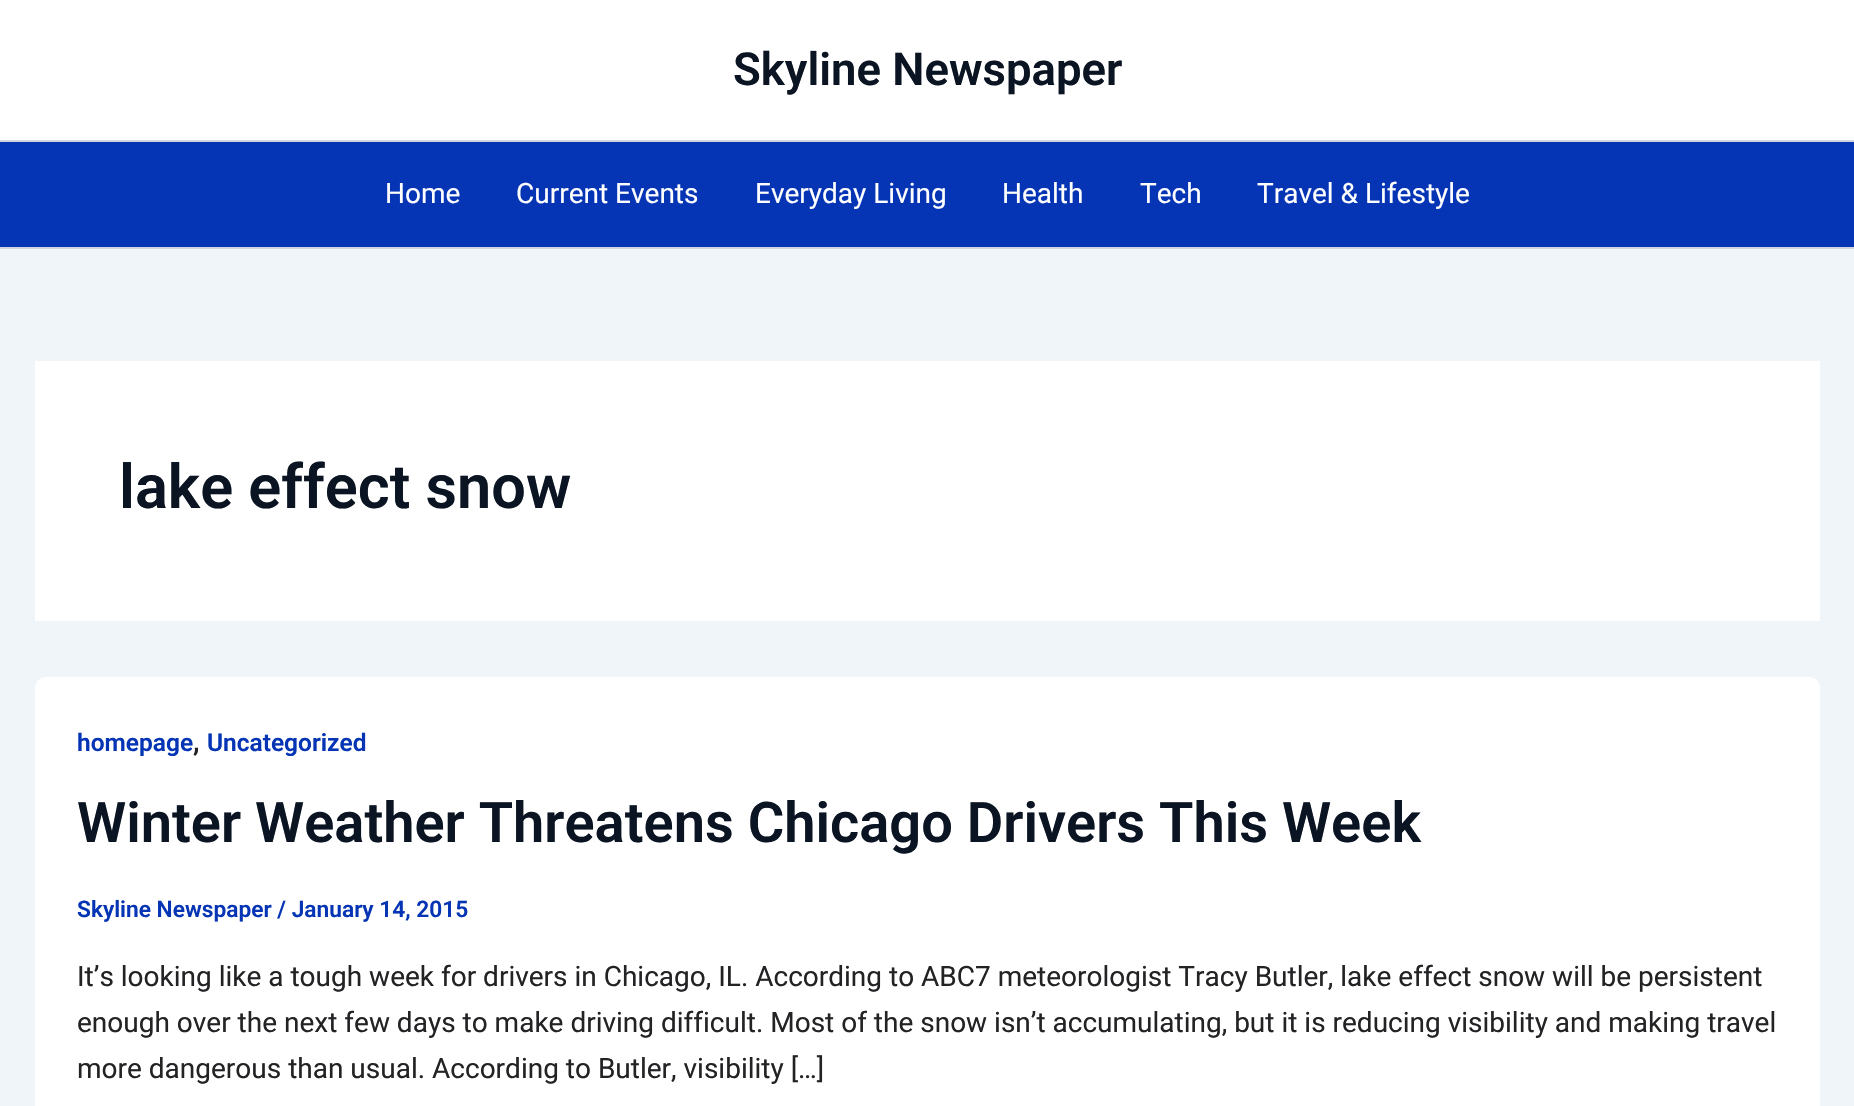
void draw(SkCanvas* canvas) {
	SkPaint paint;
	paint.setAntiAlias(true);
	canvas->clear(0xfff0f5fa);
	paint.setColor(0xffffffff);
	canvas->drawRect(SkRect::MakeXYWH(0, 0, 1854, 140), paint);
	paint.setColor(0xffd1d5db);
	canvas->drawRect(SkRect::MakeXYWH(0, 140, 1854, 2), paint);
	SkFont f1(fontMgr->matchFamilyStyle("Roboto", SkFontStyle(600, SkFontStyle::kNormal_Width, SkFontStyle::kUpright_Slant)), 45.5);
	f1.setSubpixel(true);
	paint.setColor(0xff0b1422);
	canvas->drawString("Skyline Newspaper", 733, 85, f1, paint);
	paint.setColor(0xff0534b5);
	canvas->drawRect(SkRect::MakeXYWH(0, 142, 1854, 105), paint);
	paint.setColor(0xffd1d5db);
	canvas->drawRect(SkRect::MakeXYWH(0, 247, 1854, 2), paint);
	SkFont f2(fontMgr->matchFamilyStyle("Roboto", SkFontStyle::Normal()), 28);
	f2.setSubpixel(true);
	paint.setColor(0xffffffff);
	canvas->drawString("Home", 385, 203, f2, paint);
	canvas->drawString("Current Events", 516, 203, f2, paint);
	canvas->drawString("Everyday Living", 755, 203, f2, paint);
	canvas->drawString("Health", 1002, 203, f2, paint);
	canvas->drawString("Tech", 1140, 203, f2, paint);
	canvas->drawString("Travel & Lifestyle", 1257, 203, f2, paint);
	canvas->drawRect(SkRect::MakeXYWH(35, 361, 1785, 260), paint);
	SkFont f3(fontMgr->matchFamilyStyle("Roboto", SkFontStyle(600, SkFontStyle::kNormal_Width, SkFontStyle::kUpright_Slant)), 61.25);
	f3.setSubpixel(true);
	paint.setColor(0xff0b1422);
	canvas->drawString("lake effect snow", 119, 508, f3, paint);
	paint.setColor(0xffffffff);
	canvas->drawRoundRect(SkRect::MakeXYWH(35, 677, 1785, 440), 11, 11, paint);
	SkFont f4(fontMgr->matchFamilyStyle("Roboto", SkFontStyle(600, SkFontStyle::kNormal_Width, SkFontStyle::kUpright_Slant)), 24.5);
	f4.setSubpixel(true);
	paint.setColor(0xff0534b5);
	canvas->drawString("homepage", 77, 751, f4, paint);
	SkFont f5(fontMgr->matchFamilyStyle("Roboto", SkFontStyle(600, SkFontStyle::kNormal_Width, SkFontStyle::kUpright_Slant)), 28);
	f5.setSubpixel(true);
	paint.setColor(0xff232326);
	canvas->drawString(",", 193, 751, f5, paint);
	paint.setColor(0xff0534b5);
	canvas->drawString("Uncategorized", 207, 751, f4, paint);
	SkFont f6(fontMgr->matchFamilyStyle("Roboto", SkFontStyle(600, SkFontStyle::kNormal_Width, SkFontStyle::kUpright_Slant)), 56);
	f6.setSubpixel(true);
	paint.setColor(0xff0b1422);
	canvas->drawString("Winter Weather Threatens Chicago Drivers This Week", 77, 842, f6, paint);
	SkFont f7(fontMgr->matchFamilyStyle("Roboto", SkFontStyle(600, SkFontStyle::kNormal_Width, SkFontStyle::kUpright_Slant)), 22.75);
	f7.setSubpixel(true);
	paint.setColor(0xff0534b5);
	canvas->drawString("Skyline Newspaper / January 14, 2015", 77, 917, f7, paint);
	paint.setColor(0xff232326);
	canvas->drawString("It’s looking like a tough week for drivers in Chicago, IL. According to ABC7 meteorologist Tracy Butler, lake effect snow will be persistent", 77, 986, f2, paint);
	canvas->drawString("enough over the next few days to make driving difficult. Most of the snow isn’t accumulating, but it is reducing visibility and making travel", 77, 1032, f2, paint);
	canvas->drawString("more dangerous than usual. According to Butler, visibility […]", 77, 1078, f2, paint);
}
